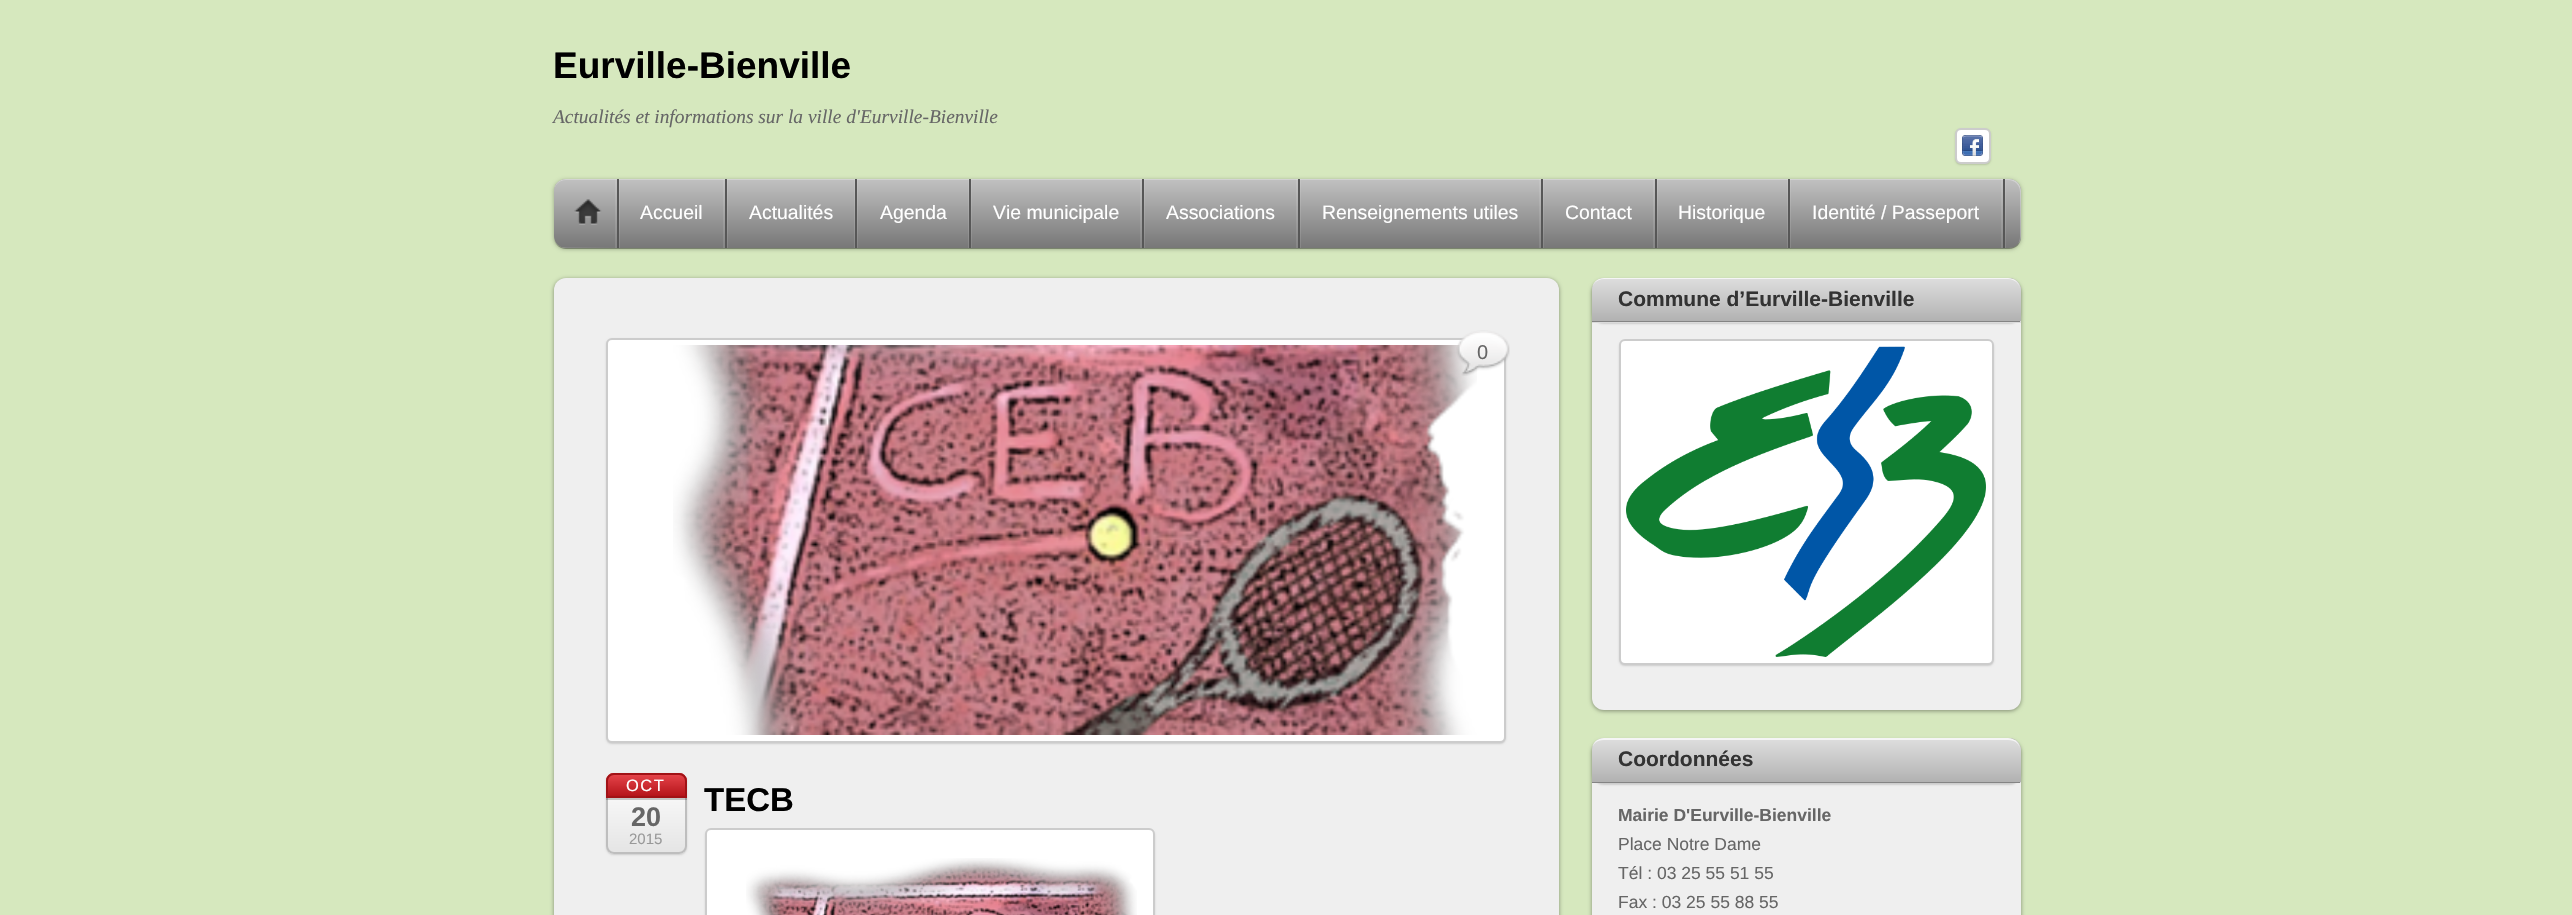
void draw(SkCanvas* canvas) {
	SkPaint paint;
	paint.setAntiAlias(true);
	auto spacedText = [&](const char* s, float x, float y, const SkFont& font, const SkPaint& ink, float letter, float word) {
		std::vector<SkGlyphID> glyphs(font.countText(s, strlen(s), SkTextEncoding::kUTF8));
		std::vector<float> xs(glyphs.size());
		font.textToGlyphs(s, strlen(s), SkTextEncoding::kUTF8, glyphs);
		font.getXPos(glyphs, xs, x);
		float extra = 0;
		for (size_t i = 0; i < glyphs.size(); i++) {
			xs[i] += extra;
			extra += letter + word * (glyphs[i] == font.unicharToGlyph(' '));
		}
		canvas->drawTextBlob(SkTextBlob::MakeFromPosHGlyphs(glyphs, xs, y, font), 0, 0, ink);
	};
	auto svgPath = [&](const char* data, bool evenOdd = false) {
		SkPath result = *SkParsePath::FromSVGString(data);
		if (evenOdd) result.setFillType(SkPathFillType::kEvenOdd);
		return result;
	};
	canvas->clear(0xffd6e8be);
	SkFont f1(fontMgr->matchFamilyStyle("Liberation Sans", SkFontStyle::Bold()), 37);
	f1.setSubpixel(true);
	paint.setColor(0xff000000);
	canvas->drawString("Eurville-Bienville", 553, 78, f1, paint);
	SkFont f2(fontMgr->matchFamilyStyle("Liberation Serif", SkFontStyle::Italic()), 19.4);
	f2.setSubpixel(true);
	paint.setColor(0xff666666);
	canvas->drawString("Actualités et informations sur la ville d'Eurville-Bienville", 553, 123, f2, paint);
	paint.setColor(0x26000000);
	paint.setMaskFilter(SkMaskFilter::MakeBlur(kNormal_SkBlurStyle, 1));
	canvas->drawRoundRect(SkRect::MakeXYWH(1955, 129, 36, 36), 6, 6, paint);
	paint.setMaskFilter(nullptr);
	paint.setColor(0xffffffff);
	canvas->drawRoundRect(SkRect::MakeXYWH(1956, 129, 34, 34), 5, 5, paint);
	paint.setStroke(true);
	paint.setStrokeWidth(2);
	paint.setColor(0xffcccccc);
	canvas->drawRoundRect(SkRect::MakeXYWH(1956, 129, 34, 34), 5, 5, paint);
	canvas->drawImageRect(SkImages::DeferredFromEncodedData(SkData::MakeFromFileName("img1.png")), SkRect::MakeXYWH(1962, 135, 21, 21), SkSamplingOptions());
	paint.setStroke(false);
	paint.setColor(0x4d000000);
	paint.setMaskFilter(SkMaskFilter::MakeBlur(kNormal_SkBlurStyle, 2));
	canvas->drawRoundRect(SkRect::MakeXYWH(554, 180, 1467, 69), 12, 12, paint);
	paint.setMaskFilter(nullptr);
	canvas->drawPath(svgPath("M554 240C556 245 560 249 566 249H2009C2016 249 2021 244 2021 237V192L2020 187V190V236C2020 242 2015 248 2008 248H566C560 248 556 244 554 240Z"), paint);
	paint.setColor(0xff777777);
	canvas->drawRoundRect(SkRect::MakeXYWH(554, 179, 1467, 69), 12, 12, paint);
	{
		const SkColor colors[] = {0x8cffffff, 0x00ffffff};
		const float stops[] = {0, 1};
		const SkPoint ends[] = {{1287, 178}, {1287, 248}};
		paint.setShader(SkGradientShader::MakeLinear(ends, colors, stops, 2, SkTileMode::kClamp));
		paint.setAlpha(255);
	}
	canvas->drawRoundRect(SkRect::MakeXYWH(554, 179, 1467, 69), 12, 12, paint);
	paint.setShader(nullptr);
	paint.setColor(0x4dffffff);
	canvas->drawPath(svgPath("M566 180H2008C2015 180 2020 185 2020 192V237C2020 240 2019 242 2018 244C2020 242 2021 239 2021 236V191C2021 184 2016 179 2009 179H566C559 179 554 184 554 191V192C554 185 559 180 566 180Z"), paint);
	paint.setColor(0x1affffff);
	canvas->drawPath(svgPath("M560 247L564 248H620V179H618V248Z"), paint);
	canvas->drawRect(SkRect::MakeXYWH(615, 179, 2, 69), paint);
	paint.setColor(0xff575757);
	canvas->drawRect(SkRect::MakeXYWH(617, 179, 2, 69), paint);
	canvas->drawImageRect(SkImages::DeferredFromEncodedData(SkData::MakeFromFileName("img2.png")), SkRect::MakeXYWH(574, 199, 28, 26), SkSamplingOptions());
	paint.setColor(0x1affffff);
	canvas->drawPath(svgPath("M620 248H728V179H726V248Z"), paint);
	canvas->drawRect(SkRect::MakeXYWH(723, 179, 2, 69), paint);
	paint.setColor(0xff575757);
	canvas->drawRect(SkRect::MakeXYWH(725, 179, 2, 69), paint);
	SkFont f3(fontMgr->matchFamilyStyle("Liberation Sans", SkFontStyle::Normal()), 19.4);
	f3.setSubpixel(true);
	paint.setColor(0xffffffff);
	canvas->drawString("Accueil", 640, 219, f3, paint);
	paint.setColor(0x1affffff);
	canvas->drawPath(svgPath("M728 248H858V179H856V248Z"), paint);
	canvas->drawRect(SkRect::MakeXYWH(854, 179, 1, 69), paint);
	paint.setColor(0xff575757);
	canvas->drawRect(SkRect::MakeXYWH(855, 179, 2, 69), paint);
	paint.setColor(0xffffffff);
	canvas->drawString("Actualités", 749, 219, f3, paint);
	paint.setColor(0x1affffff);
	canvas->drawPath(svgPath("M858 248H972V179H970V248Z"), paint);
	canvas->drawRect(SkRect::MakeXYWH(968, 179, 1, 69), paint);
	paint.setColor(0xff575757);
	canvas->drawRect(SkRect::MakeXYWH(969, 179, 2, 69), paint);
	paint.setColor(0xffffffff);
	canvas->drawString("Agenda", 880, 219, f3, paint);
	paint.setColor(0x1affffff);
	canvas->drawPath(svgPath("M972 248H1145V179H1143V248Z"), paint);
	canvas->drawRect(SkRect::MakeXYWH(1140, 179, 2, 69), paint);
	paint.setColor(0xff575757);
	canvas->drawRect(SkRect::MakeXYWH(1142, 179, 2, 69), paint);
	paint.setColor(0xffffffff);
	canvas->drawString("Vie municipale", 993, 219, f3, paint);
	paint.setColor(0x1affffff);
	canvas->drawPath(svgPath("M1145 248H1301V179H1299V248Z"), paint);
	canvas->drawRect(SkRect::MakeXYWH(1296, 179, 2, 69), paint);
	paint.setColor(0xff575757);
	canvas->drawRect(SkRect::MakeXYWH(1298, 179, 2, 69), paint);
	paint.setColor(0xffffffff);
	canvas->drawString("Associations", 1166, 219, f3, paint);
	paint.setColor(0x1affffff);
	canvas->drawPath(svgPath("M1301 248H1544V179H1542V248Z"), paint);
	canvas->drawRect(SkRect::MakeXYWH(1539, 179, 2, 69), paint);
	paint.setColor(0xff575757);
	canvas->drawRect(SkRect::MakeXYWH(1541, 179, 2, 69), paint);
	paint.setColor(0xffffffff);
	canvas->drawString("Renseignements utiles", 1322, 219, f3, paint);
	paint.setColor(0x1affffff);
	canvas->drawPath(svgPath("M1544 248H1658V179H1656V248Z"), paint);
	canvas->drawRect(SkRect::MakeXYWH(1653, 179, 2, 69), paint);
	paint.setColor(0xff575757);
	canvas->drawRect(SkRect::MakeXYWH(1655, 179, 2, 69), paint);
	paint.setColor(0xffffffff);
	canvas->drawString("Contact", 1565, 219, f3, paint);
	paint.setColor(0x1affffff);
	canvas->drawPath(svgPath("M1658 248H1791V179H1790V248Z"), paint);
	canvas->drawRect(SkRect::MakeXYWH(1787, 179, 1, 69), paint);
	paint.setColor(0xff575757);
	canvas->drawRect(SkRect::MakeXYWH(1788, 179, 2, 69), paint);
	paint.setColor(0xffffffff);
	canvas->drawString("Historique", 1678, 219, f3, paint);
	paint.setColor(0x1affffff);
	canvas->drawPath(svgPath("M1791 248H2006V179H2004V248Z"), paint);
	canvas->drawRect(SkRect::MakeXYWH(2001, 179, 2, 69), paint);
	paint.setColor(0xff575757);
	canvas->drawRect(SkRect::MakeXYWH(2003, 179, 2, 69), paint);
	paint.setColor(0xffffffff);
	canvas->drawString("Identité / Passeport", 1812, 219, f3, paint);
	paint.setColor(0x66000000);
	paint.setMaskFilter(SkMaskFilter::MakeBlur(kNormal_SkBlurStyle, 2));
	canvas->drawRoundRect(SkRect::MakeXYWH(554, 279, 1005, 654), 12, 12, paint);
	paint.setMaskFilter(nullptr);
	paint.setColor(0xffefefef);
	canvas->drawRoundRect(SkRect::MakeXYWH(554, 278, 1005, 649), 12, 12, paint);
	paint.setColor(0x26000000);
	paint.setMaskFilter(SkMaskFilter::MakeBlur(kNormal_SkBlurStyle, 1));
	canvas->drawRoundRect(SkRect::MakeXYWH(606, 339, 900, 405), 6, 6, paint);
	paint.setMaskFilter(nullptr);
	paint.setColor(0xffffffff);
	canvas->drawRoundRect(SkRect::MakeXYWH(607, 339, 898, 403), 5, 5, paint);
	paint.setStroke(true);
	paint.setColor(0xffcccccc);
	canvas->drawRoundRect(SkRect::MakeXYWH(607, 339, 898, 403), 5, 5, paint);
	canvas->drawImageRect(SkImages::DeferredFromEncodedData(SkData::MakeFromFileName("img3.png")), SkRect::MakeXYWH(673, 345, 804, 390), SkSamplingOptions());
	canvas->drawImageRect(SkImages::DeferredFromEncodedData(SkData::MakeFromFileName("img4.png")), SkRect::MakeXYWH(1456, 330, 54, 46), SkSamplingOptions());
	SkFont f4(fontMgr->matchFamilyStyle("Liberation Sans", SkFontStyle::Normal()), 20);
	f4.setSubpixel(true);
	paint.setStroke(false);
	paint.setColor(0xff666666);
	canvas->drawString("0", 1477, 359, f4, paint);
	paint.setColor(0x26000000);
	paint.setMaskFilter(SkMaskFilter::MakeBlur(kNormal_SkBlurStyle, 1));
	canvas->drawRoundRect(SkRect::MakeXYWH(606, 774, 81, 81), 8, 8, paint);
	paint.setMaskFilter(nullptr);
	paint.setColor(0xffffffff);
	canvas->drawRoundRect(SkRect::MakeXYWH(606, 773, 81, 81), 8, 8, paint);
	canvas->save();
	canvas->clipPath(svgPath("M614 773H679C683.5 773 687 776.5 687 781V846C687 850.5 683.5 854 679 854H614C609.5 854 606 850.5 606 846V781C606 776.5 609.5 773 614 773Z"), true);
	{
		const SkColor colors[] = {0x00000000, 0x1a000000};
		const float stops[] = {0, 1};
		const SkPoint ends[] = {{647, 774}, {647, 852}};
		paint.setShader(SkGradientShader::MakeLinear(ends, colors, stops, 2, SkTileMode::kClamp));
		paint.setAlpha(255);
	}
	canvas->drawRect(SkRect::MakeXYWH(606, 798, 81, 54), paint);
	canvas->restore();
	paint.setStroke(true);
	paint.setShader(nullptr);
	paint.setColor(0xffbebebe);
	canvas->drawRoundRect(SkRect::MakeXYWH(607, 774, 79, 79), 7, 7, paint);
	paint.setStroke(false);
	paint.setColor(0x33000000);
	canvas->drawRect(SkRect::MakeXYWH(606, 798, 81, 2), paint);
	paint.setColor(0xffe0161d);
	canvas->drawPath(svgPath("M614 773H679C683.5 773 687 776.5 687 781V798H606V781C606 776.5 609.5 773 614 773Z"), paint);
	canvas->save();
	canvas->clipPath(svgPath("M614 773H679C683.5 773 687 776.5 687 781V798H606V781C606 776.5 609.5 773 614 773Z"), true);
	{
		const SkColor colors[] = {0x33ffffff, 0x33000000};
		const float stops[] = {0, 1};
		const SkPoint ends[] = {{647, 774}, {647, 797}};
		paint.setShader(SkGradientShader::MakeLinear(ends, colors, stops, 2, SkTileMode::kClamp));
		paint.setAlpha(255);
	}
	canvas->drawRect(SkRect::MakeXYWH(606, 774, 81, 22), paint);
	canvas->restore();
	paint.setStroke(true);
	paint.setShader(nullptr);
	paint.setColor(0xffa11216);
	canvas->drawPath(svgPath("M614 774H679C683 774 686 777 686 781V797H607V781C607 777 610 774 614 774Z"), paint);
	SkFont f5(fontMgr->matchFamilyStyle("Liberation Sans", SkFontStyle::Normal()), 16.5);
	f5.setSubpixel(true);
	paint.setStroke(false);
	paint.setColor(0xffffffff);
	spacedText("OCT", 626, 791, f5, paint, 1.5, 0);
	SkFont f6(fontMgr->matchFamilyStyle("Liberation Sans", SkFontStyle::Bold()), 27);
	f6.setSubpixel(true);
	paint.setColor(0xff666666);
	canvas->drawString("20", 631, 826, f6, paint);
	SkFont f7(fontMgr->matchFamilyStyle("Liberation Sans", SkFontStyle::Normal()), 15);
	f7.setSubpixel(true);
	paint.setColor(0xff999999);
	canvas->drawString("2015", 629, 844, f7, paint);
	SkFont f8(fontMgr->matchFamilyStyle("Liberation Sans", SkFontStyle::Bold()), 33);
	f8.setSubpixel(true);
	paint.setColor(0xff000000);
	canvas->drawString("TECB", 704, 811, f8, paint);
	paint.setColor(0x26000000);
	paint.setMaskFilter(SkMaskFilter::MakeBlur(kNormal_SkBlurStyle, 1));
	canvas->drawRoundRect(SkRect::MakeXYWH(705, 830, 450, 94), 6, 6, paint);
	paint.setMaskFilter(nullptr);
	paint.setColor(0xffffffff);
	canvas->drawRoundRect(SkRect::MakeXYWH(706, 829, 448, 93), 5, 5, paint);
	paint.setStroke(true);
	paint.setColor(0xffcccccc);
	canvas->drawRoundRect(SkRect::MakeXYWH(706, 829, 448, 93), 5, 5, paint);
	canvas->drawImageRect(SkImages::DeferredFromEncodedData(SkData::MakeFromFileName("img5.png")), SkRect::MakeXYWH(746, 858, 391, 57), SkSamplingOptions());
	paint.setStroke(false);
	paint.setColor(0x66000000);
	paint.setMaskFilter(SkMaskFilter::MakeBlur(kNormal_SkBlurStyle, 2));
	canvas->drawRoundRect(SkRect::MakeXYWH(1592, 281, 429, 430), 12, 12, paint);
	paint.setMaskFilter(nullptr);
	paint.setColor(0xffefefef);
	canvas->drawRoundRect(SkRect::MakeXYWH(1592, 279, 429, 431), 12, 12, paint);
	paint.setColor(0x26000000);
	paint.setMaskFilter(SkMaskFilter::MakeBlur(kNormal_SkBlurStyle, 1));
	canvas->drawRoundRect(SkRect::MakeXYWH(1592, 279, 429, 45), 12, 12, paint);
	paint.setMaskFilter(nullptr);
	paint.setColor(0xffa9a9a9);
	canvas->drawPath(svgPath("M1604 278H2009C2015.5 278 2021 283.5 2021 290V323H1592V290C1592 283.5 1597.5 278 1604 278Z"), paint);
	canvas->save();
	canvas->clipPath(svgPath("M1604 278H2009C2015.5 278 2021 283.5 2021 290V323H1592V290C1592 283.5 1597.5 278 1604 278Z"), true);
	{
		const SkColor colors[] = {0x99ffffff, 0x1affffff};
		const float stops[] = {0, 1};
		const SkPoint ends[] = {{1806, 237}, {1806, 279}};
		paint.setShader(SkGradientShader::MakeLinear(ends, colors, stops, 2, SkTileMode::kClamp));
		paint.setAlpha(255);
	}
	canvas->drawRect(SkRect::MakeXYWH(1592, 278, 429, 1), paint);
	{
		const SkColor colors[] = {0x99ffffff, 0x1affffff};
		const float stops[] = {0, 1};
		const SkPoint ends[] = {{1806, 279}, {1806, 321}};
		paint.setShader(SkGradientShader::MakeLinear(ends, colors, stops, 2, SkTileMode::kClamp));
		paint.setAlpha(255);
	}
	canvas->drawRect(SkRect::MakeXYWH(1592, 279, 429, 42), paint);
	canvas->restore();
	{
		const SkColor colors[] = {0xffdddddd, 0xffb2b2b2};
		const float stops[] = {0, 1};
		const SkPoint ends[] = {{1806, 321}, {1806, 363}};
		paint.setShader(SkGradientShader::MakeLinear(ends, colors, stops, 2, SkTileMode::kClamp));
		paint.setAlpha(255);
	}
	canvas->drawRect(SkRect::MakeXYWH(1592, 321, 429, 2), paint);
	paint.setShader(nullptr);
	paint.setColor(0xfff5f5f5);
	canvas->drawPath(svgPath("M1604 278C1597 278 1592 283 1592 290C1592 284 1597 279 1604 279H2008C2015 279 2020 284 2020 290C2020 283 2015 278 2008 278Z"), paint);
	paint.setColor(0xff848484);
	canvas->drawRect(SkRect::MakeXYWH(1592, 321, 428, 1), paint);
	SkFont f9(fontMgr->matchFamilyStyle("Liberation Sans", SkFontStyle::Bold()), 21);
	f9.setSubpixel(true);
	paint.setColor(0xff333333);
	canvas->drawString("Commune d’Eurville-Bienville", 1618, 306, f9, paint);
	paint.setColor(0x26000000);
	paint.setMaskFilter(SkMaskFilter::MakeBlur(kNormal_SkBlurStyle, 1));
	canvas->drawRoundRect(SkRect::MakeXYWH(1619, 341, 375, 325), 6, 6, paint);
	paint.setMaskFilter(nullptr);
	paint.setColor(0xffffffff);
	canvas->drawRoundRect(SkRect::MakeXYWH(1620, 340, 373, 324), 5, 5, paint);
	paint.setStroke(true);
	paint.setColor(0xffcccccc);
	canvas->drawRoundRect(SkRect::MakeXYWH(1620, 340, 373, 324), 5, 5, paint);
	canvas->drawImageRect(SkImages::DeferredFromEncodedData(SkData::MakeFromFileName("img6.png")), SkRect::MakeXYWH(1626, 346, 360, 311), SkSamplingOptions());
	paint.setStroke(false);
	paint.setColor(0x66000000);
	paint.setMaskFilter(SkMaskFilter::MakeBlur(kNormal_SkBlurStyle, 2));
	canvas->drawRoundRect(SkRect::MakeXYWH(1592, 741, 429, 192), 12, 12, paint);
	paint.setMaskFilter(nullptr);
	paint.setColor(0xffefefef);
	canvas->drawRoundRect(SkRect::MakeXYWH(1592, 740, 429, 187), 12, 12, paint);
	paint.setColor(0x26000000);
	paint.setMaskFilter(SkMaskFilter::MakeBlur(kNormal_SkBlurStyle, 1));
	canvas->drawRoundRect(SkRect::MakeXYWH(1592, 740, 429, 45), 12, 12, paint);
	paint.setMaskFilter(nullptr);
	paint.setColor(0xffa9a9a9);
	canvas->drawPath(svgPath("M1604 738H2009C2015.5 738 2021 743.5 2021 750V783H1592V750C1592 743.5 1597.5 738 1604 738Z"), paint);
	canvas->save();
	canvas->clipPath(svgPath("M1604 738H2009C2015.5 738 2021 743.5 2021 750V783H1592V750C1592 743.5 1597.5 738 1604 738Z"), true);
	{
		const SkColor colors[] = {0x99ffffff, 0x1affffff};
		const float stops[] = {0, 1};
		const SkPoint ends[] = {{1806, 698}, {1806, 740}};
		paint.setShader(SkGradientShader::MakeLinear(ends, colors, stops, 2, SkTileMode::kClamp));
		paint.setAlpha(255);
	}
	canvas->drawRect(SkRect::MakeXYWH(1592, 738, 429, 2), paint);
	{
		const SkColor colors[] = {0x99ffffff, 0x1affffff};
		const float stops[] = {0, 1};
		const SkPoint ends[] = {{1806, 740}, {1806, 782}};
		paint.setShader(SkGradientShader::MakeLinear(ends, colors, stops, 2, SkTileMode::kClamp));
		paint.setAlpha(255);
	}
	canvas->drawRect(SkRect::MakeXYWH(1592, 740, 429, 42), paint);
	canvas->restore();
	{
		const SkColor colors[] = {0xffdddddd, 0xffb2b2b2};
		const float stops[] = {0, 1};
		const SkPoint ends[] = {{1806, 782}, {1806, 824}};
		paint.setShader(SkGradientShader::MakeLinear(ends, colors, stops, 2, SkTileMode::kClamp));
		paint.setAlpha(255);
	}
	canvas->drawRect(SkRect::MakeXYWH(2020, 782, 1, 1), paint);
	paint.setShader(nullptr);
	paint.setColor(0xfff5f5f5);
	canvas->drawPath(svgPath("M1604 738C1597 738 1592 743 1592 750C1592 744 1597 740 1604 740H2008C2015 740 2020 744 2020 750C2020 743 2015 738 2008 738Z"), paint);
	paint.setColor(0xff848484);
	canvas->drawRect(SkRect::MakeXYWH(1592, 782, 428, 1), paint);
	paint.setColor(0xff333333);
	canvas->drawString("Coordonnées", 1618, 766, f9, paint);
	SkFont f10(fontMgr->matchFamilyStyle("Liberation Sans", SkFontStyle::Bold()), 17.5);
	f10.setSubpixel(true);
	paint.setColor(0xff666666);
	canvas->drawString("Mairie D'Eurville-Bienville", 1618, 821, f10, paint);
	SkFont f11(fontMgr->matchFamilyStyle("Liberation Sans", SkFontStyle::Normal()), 17.5);
	f11.setSubpixel(true);
	canvas->drawString("Place Notre Dame", 1618, 850, f11, paint);
	canvas->drawString("Tél : 03 25 55 51 55", 1618, 879, f11, paint);
	canvas->drawString("Fax : 03 25 55 88 55", 1618, 908, f11, paint);
}
